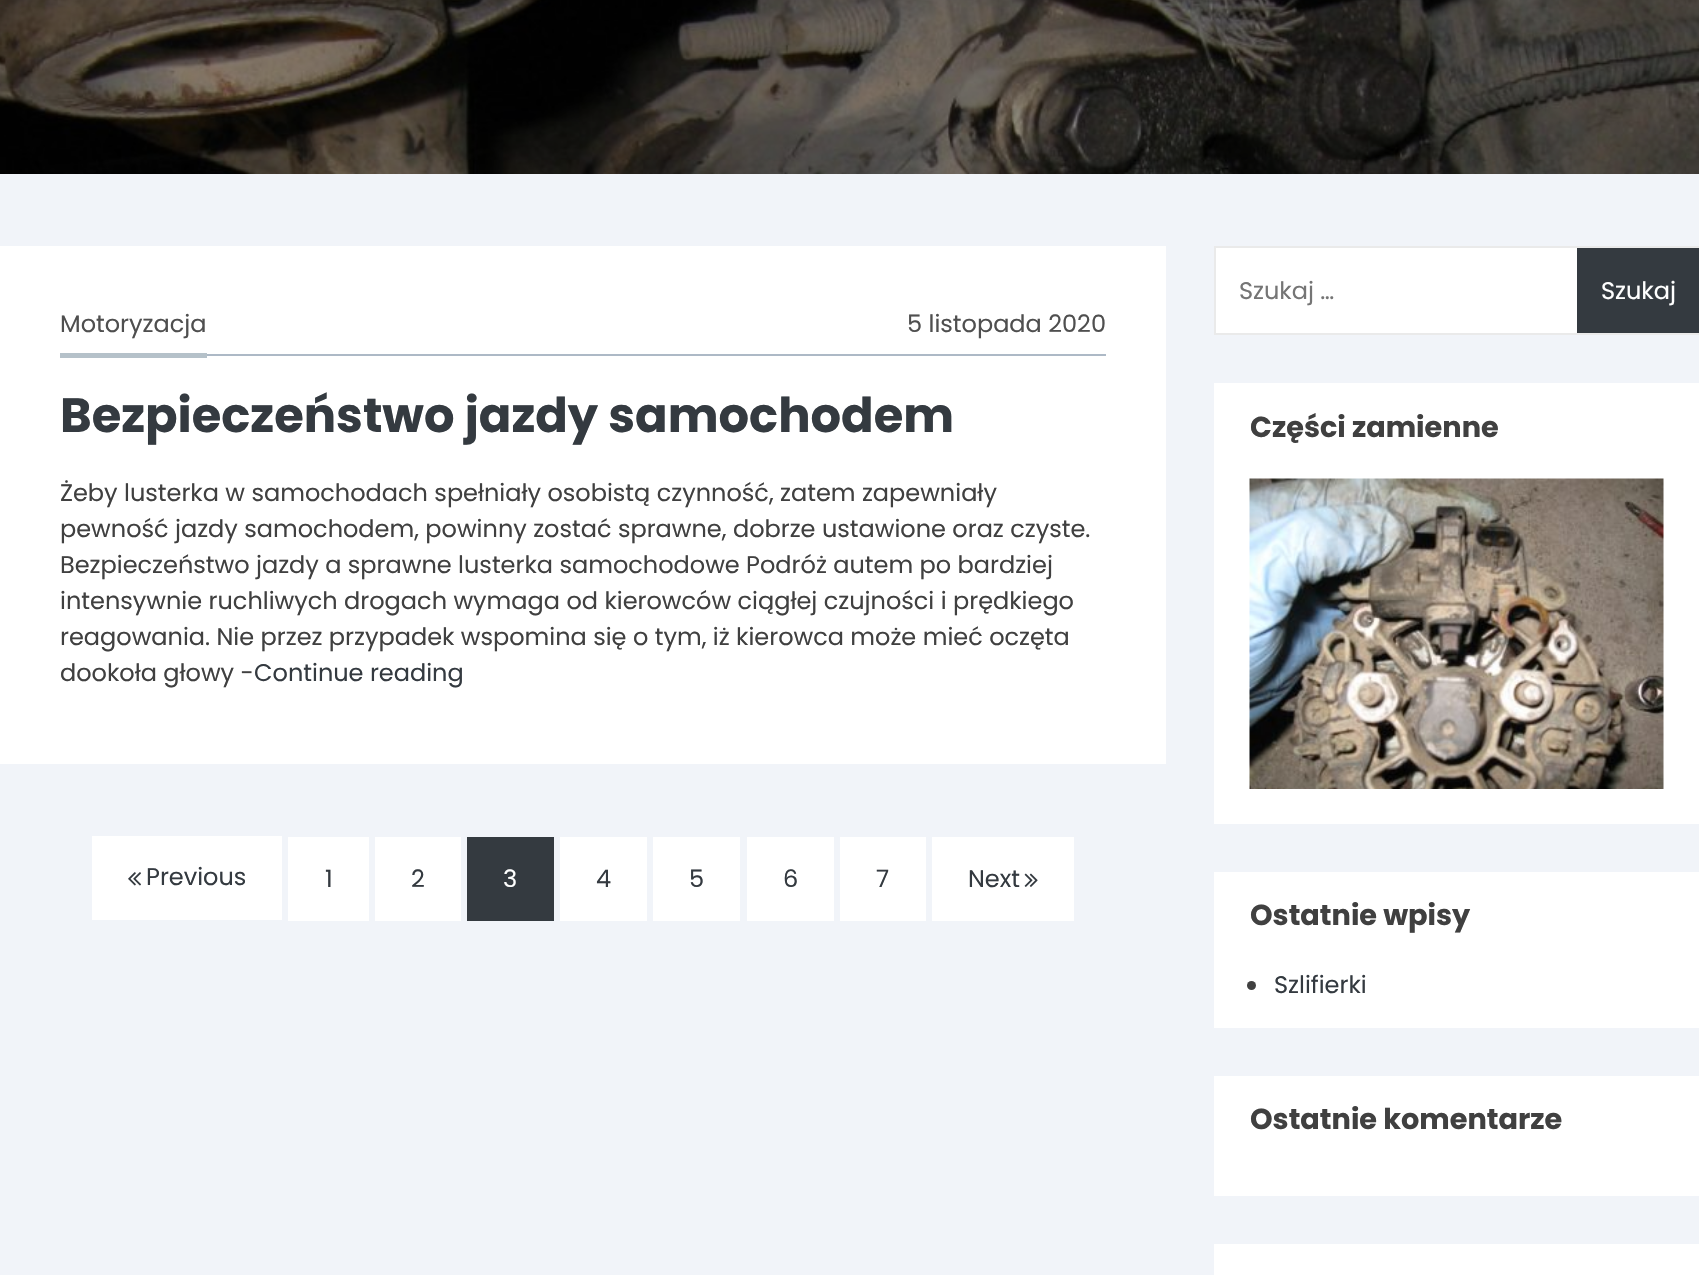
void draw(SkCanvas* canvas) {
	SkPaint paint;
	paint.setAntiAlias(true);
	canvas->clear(0xfff1f4f9);
	canvas->drawImageRect(SkImages::DeferredFromEncodedData(SkData::MakeFromFileName("img1.png")), SkRect::MakeXYWH(0, 0, 1699, 174), SkSamplingOptions());
	paint.setColor(0xffffffff);
	canvas->drawRect(SkRect::MakeXYWH(0, 246, 1166, 518), paint);
	paint.setColor(0xffadb9c6);
	canvas->drawRect(SkRect::MakeXYWH(207, 354, 899, 2), paint);
	SkFont f1(fontMgr->matchFamilyStyle("Poppins", SkFontStyle::Normal()), 24);
	f1.setSubpixel(true);
	paint.setColor(0xff4f4f4f);
	canvas->drawString("Motoryzacja", 60, 332, f1, paint);
	paint.setColor(0xffb5c1c9);
	canvas->drawRect(SkRect::MakeXYWH(60, 353, 147, 5), paint);
	paint.setColor(0xff4f4f4f);
	canvas->drawString("5 listopada 2020", 907, 332, f1, paint);
	SkFont f2(fontMgr->matchFamilyStyle("Poppins", SkFontStyle::Bold()), 48);
	f2.setSubpixel(true);
	paint.setColor(0xff343a40);
	canvas->drawString("Bezpieczeństwo jazdy samochodem", 60, 432, f2, paint);
	paint.setColor(0xff404040);
	canvas->drawString("Żeby lusterka w samochodach spełniały osobistą czynność, zatem zapewniały", 60, 501, f1, paint);
	canvas->drawString("pewność jazdy samochodem, powinny zostać sprawne, dobrze ustawione oraz czyste.", 60, 537, f1, paint);
	canvas->drawString("Bezpieczeństwo jazdy a sprawne lusterka samochodowe Podróż autem po bardziej", 60, 573, f1, paint);
	canvas->drawString("intensywnie ruchliwych drogach wymaga od kierowców ciągłej czujności i prędkiego", 60, 609, f1, paint);
	canvas->drawString("reagowania. Nie przez przypadek wspomina się o tym, iż kierowca może mieć oczęta", 60, 645, f1, paint);
	canvas->drawString("dookoła głowy -", 60, 681, f1, paint);
	paint.setColor(0xff343a40);
	canvas->drawString("Continue reading", 254, 681, f1, paint);
	paint.setColor(0xffffffff);
	canvas->drawRect(SkRect::MakeXYWH(92, 836, 190, 84), paint);
	canvas->drawImageRect(SkImages::DeferredFromEncodedData(SkData::MakeFromFileName("img2.png")), SkRect::MakeXYWH(128, 872, 13, 14), SkSamplingOptions());
	paint.setColor(0xff343a40);
	canvas->drawString("Previous", 146, 885, f1, paint);
	paint.setColor(0xffffffff);
	canvas->drawRect(SkRect::MakeXYWH(288, 837, 81, 84), paint);
	paint.setColor(0xff343a40);
	canvas->drawString("1", 325, 887, f1, paint);
	paint.setColor(0xffffffff);
	canvas->drawRect(SkRect::MakeXYWH(375, 837, 86, 84), paint);
	paint.setColor(0xff343a40);
	canvas->drawString("2", 411, 887, f1, paint);
	canvas->drawRect(SkRect::MakeXYWH(467, 837, 87, 84), paint);
	paint.setColor(0xffffffff);
	canvas->drawString("3", 503, 887, f1, paint);
	canvas->drawRect(SkRect::MakeXYWH(560, 837, 87, 84), paint);
	paint.setColor(0xff343a40);
	canvas->drawString("4", 596, 887, f1, paint);
	paint.setColor(0xffffffff);
	canvas->drawRect(SkRect::MakeXYWH(653, 837, 87, 84), paint);
	paint.setColor(0xff343a40);
	canvas->drawString("5", 689, 887, f1, paint);
	paint.setColor(0xffffffff);
	canvas->drawRect(SkRect::MakeXYWH(747, 837, 87, 84), paint);
	paint.setColor(0xff343a40);
	canvas->drawString("6", 783, 887, f1, paint);
	paint.setColor(0xffffffff);
	canvas->drawRect(SkRect::MakeXYWH(840, 837, 86, 84), paint);
	paint.setColor(0xff343a40);
	canvas->drawString("7", 876, 887, f1, paint);
	paint.setColor(0xffffffff);
	canvas->drawRect(SkRect::MakeXYWH(932, 837, 142, 84), paint);
	paint.setColor(0xff343a40);
	canvas->drawString("Next", 968, 887, f1, paint);
	canvas->drawImageRect(SkImages::DeferredFromEncodedData(SkData::MakeFromFileName("img3.png")), SkRect::MakeXYWH(1024, 873, 14, 14), SkSamplingOptions());
	paint.setColor(0xffffffff);
	canvas->drawRect(SkRect::MakeXYWH(1216, 248, 361, 85), paint);
	paint.setStroke(true);
	paint.setStrokeWidth(2);
	paint.setColor(0xffeaeaea);
	canvas->drawRect(SkRect::MakeXYWH(1215, 247, 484, 87), paint);
	paint.setStroke(false);
	paint.setColor(0xff757575);
	canvas->drawString("Szukaj …", 1239, 299, f1, paint);
	paint.setColor(0xff343a40);
	canvas->drawRect(SkRect::MakeXYWH(1577, 248, 122, 85), paint);
	paint.setColor(0xffffffff);
	canvas->drawString("Szukaj", 1601, 299, f1, paint);
	canvas->drawRect(SkRect::MakeXYWH(1214, 383, 485, 441), paint);
	SkFont f3(fontMgr->matchFamilyStyle("Poppins", SkFontStyle::Bold()), 28.75);
	f3.setSubpixel(true);
	paint.setColor(0xff404040);
	canvas->drawString("Części zamienne", 1250, 437, f3, paint);
	canvas->drawImageRect(SkImages::DeferredFromEncodedData(SkData::MakeFromFileName("img4.png")), SkRect::MakeXYWH(1249, 478, 415, 311), SkSamplingOptions());
	paint.setColor(0xffffffff);
	canvas->drawRect(SkRect::MakeXYWH(1214, 872, 485, 156), paint);
	paint.setColor(0xff404040);
	canvas->drawString("Ostatnie wpisy", 1250, 925, f3, paint);
	canvas->drawCircle(1251.5, 985.5, 4.5, paint);
	paint.setColor(0xff343a40);
	canvas->drawString("Szlifierki", 1274, 993, f1, paint);
	paint.setColor(0xffffffff);
	canvas->drawRect(SkRect::MakeXYWH(1214, 1076, 485, 120), paint);
	paint.setColor(0xff404040);
	canvas->drawString("Ostatnie komentarze", 1250, 1129, f3, paint);
	paint.setColor(0xffffffff);
	canvas->drawRect(SkRect::MakeXYWH(1214, 1244, 485, 31), paint);
}
